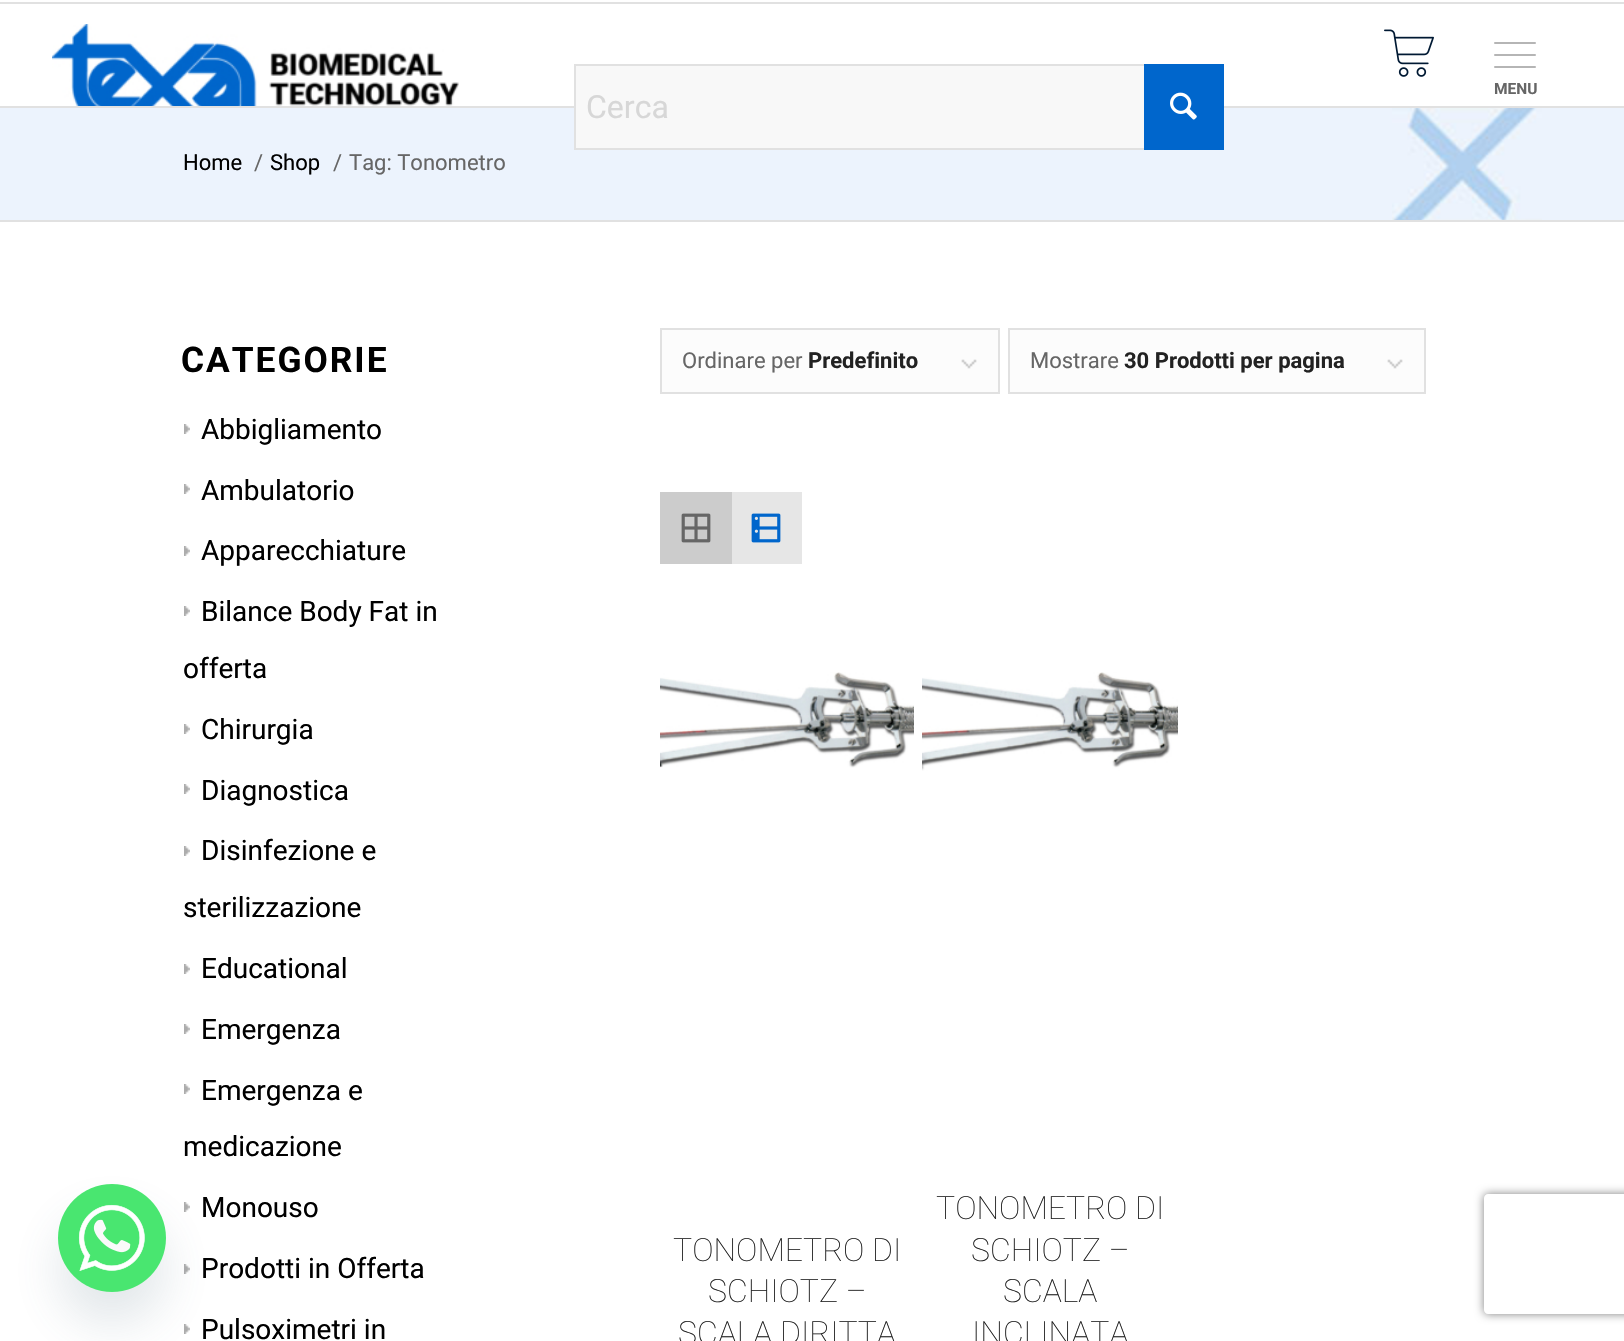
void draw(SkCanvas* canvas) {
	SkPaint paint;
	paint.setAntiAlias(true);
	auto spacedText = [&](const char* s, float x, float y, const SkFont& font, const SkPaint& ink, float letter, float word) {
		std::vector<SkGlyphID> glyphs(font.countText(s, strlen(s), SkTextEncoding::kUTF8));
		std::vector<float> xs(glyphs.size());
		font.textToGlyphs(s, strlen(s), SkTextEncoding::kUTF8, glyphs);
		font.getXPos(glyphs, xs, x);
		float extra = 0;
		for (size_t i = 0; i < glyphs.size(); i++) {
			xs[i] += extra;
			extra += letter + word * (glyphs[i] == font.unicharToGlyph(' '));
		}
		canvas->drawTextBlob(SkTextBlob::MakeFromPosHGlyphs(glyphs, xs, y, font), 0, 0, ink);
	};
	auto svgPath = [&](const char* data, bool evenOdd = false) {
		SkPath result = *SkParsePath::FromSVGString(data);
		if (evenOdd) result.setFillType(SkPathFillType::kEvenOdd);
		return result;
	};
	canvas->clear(0xffffffff);
	canvas->drawImageRect(SkImages::DeferredFromEncodedData(SkData::MakeFromFileName("img6.png")), SkRect::MakeXYWH(184, 1202, 6, 10), SkSamplingOptions());
	canvas->drawImageRect(SkImages::DeferredFromEncodedData(SkData::MakeFromFileName("img6.png")), SkRect::MakeXYWH(184, 1264, 6, 10), SkSamplingOptions());
	canvas->drawImageRect(SkImages::DeferredFromEncodedData(SkData::MakeFromFileName("img6.png")), SkRect::MakeXYWH(184, 1324, 6, 10), SkSamplingOptions());
	paint.setColor(0x2949687e);
	paint.setMaskFilter(SkMaskFilter::MakeBlur(kNormal_SkBlurStyle, 24));
	canvas->drawRoundRect(SkRect::MakeXYWH(58, 1216, 108, 108), 54, 54, paint);
	paint.setMaskFilter(nullptr);
	canvas->drawImageRect(SkImages::DeferredFromEncodedData(SkData::MakeFromFileName("img1.png")), SkRect::MakeXYWH(58, 1184, 108, 108), SkSamplingOptions());
	paint.setColor(0xffe1e1e1);
	canvas->drawRect(SkRect::MakeXYWH(0, 2, 1624, 2), paint);
	canvas->drawRect(SkRect::MakeXYWH(0, 106, 1624, 2), paint);
	canvas->drawImageRect(SkImages::DeferredFromEncodedData(SkData::MakeFromFileName("img2.png")), SkRect::MakeXYWH(52, 24, 407, 82), SkSamplingOptions());
	canvas->drawImageRect(SkImages::DeferredFromEncodedData(SkData::MakeFromFileName("img3.png")), SkRect::MakeXYWH(1384, 29, 50, 48), SkSamplingOptions());
	paint.setColor(0xffb5b5b5);
	canvas->drawRoundRect(SkRect::MakeXYWH(1494, 54, 42, 2), 1, 1, paint);
	canvas->drawRoundRect(SkRect::MakeXYWH(1494, 42, 42, 2), 1, 1, paint);
	canvas->drawRoundRect(SkRect::MakeXYWH(1494, 66, 42, 2), 1, 1, paint);
	SkFont f1(fontMgr->matchFamilyStyle("Roboto", SkFontStyle::Bold()), 15.5);
	f1.setSubpixel(true);
	paint.setColor(0xff666666);
	canvas->drawString("MENU", 1494, 94, f1, paint);
	paint.setColor(0xffecf3fd);
	canvas->drawRect(SkRect::MakeXYWH(0, 108, 1624, 112), paint);
	paint.setColor(0xfff8f8f8);
	canvas->drawRect(SkRect::MakeXYWH(576, 66, 568, 82), paint);
	paint.setStroke(true);
	paint.setStrokeWidth(2);
	paint.setColor(0xffe1e1e1);
	canvas->drawRect(SkRect::MakeXYWH(575, 65, 648, 84), paint);
	SkFont f2(fontMgr->matchFamilyStyle("Roboto", SkFontStyle::Normal()), 32);
	f2.setSubpixel(true);
	paint.setStroke(false);
	paint.setColor(0xffd7d7d7);
	canvas->drawString("Cerca", 586, 118, f2, paint);
	paint.setColor(0xff0066cc);
	canvas->drawRect(SkRect::MakeXYWH(1144, 64, 80, 86), paint);
	canvas->drawImageRect(SkImages::DeferredFromEncodedData(SkData::MakeFromFileName("img4.png")), SkRect::MakeXYWH(1170, 92, 27, 28), SkSamplingOptions());
	canvas->drawImageRect(SkImages::DeferredFromEncodedData(SkData::MakeFromFileName("img5.png")), SkRect::MakeXYWH(1392, 108, 150, 112), SkSamplingOptions());
	SkFont f3(fontMgr->matchFamilyStyle("Roboto", SkFontStyle::Normal()), 22);
	f3.setSubpixel(true);
	paint.setColor(0xff000000);
	canvas->drawString("Home", 183, 170, f3, paint);
	paint.setColor(0xff666666);
	canvas->drawString("/", 254, 170, f3, paint);
	paint.setColor(0xff000000);
	canvas->drawString("Shop", 270, 170, f3, paint);
	paint.setColor(0xff666666);
	canvas->drawString("/", 333, 170, f3, paint);
	canvas->drawString("Tag: Tonometro", 349, 170, f3, paint);
	paint.setColor(0xffe1e1e1);
	canvas->drawRect(SkRect::MakeXYWH(0, 220, 1624, 2), paint);
	SkFont f4(fontMgr->matchFamilyStyle("Roboto", SkFontStyle::Bold()), 35.25);
	f4.setSubpixel(true);
	paint.setColor(0xff000000);
	spacedText("CATEGORIE", 181, 372, f4, paint, 2, 0);
	canvas->drawImageRect(SkImages::DeferredFromEncodedData(SkData::MakeFromFileName("img6.png")), SkRect::MakeXYWH(184, 424, 6, 10), SkSamplingOptions());
	SkFont f5(fontMgr->matchFamilyStyle("Roboto", SkFontStyle::Normal()), 28);
	f5.setSubpixel(true);
	canvas->drawString("Abbigliamento", 201, 439, f5, paint);
	canvas->drawImageRect(SkImages::DeferredFromEncodedData(SkData::MakeFromFileName("img6.png")), SkRect::MakeXYWH(184, 484, 6, 10), SkSamplingOptions());
	canvas->drawString("Ambulatorio", 201, 500, f5, paint);
	canvas->drawImageRect(SkImages::DeferredFromEncodedData(SkData::MakeFromFileName("img6.png")), SkRect::MakeXYWH(184, 546, 6, 10), SkSamplingOptions());
	canvas->drawString("Apparecchiature", 201, 560, f5, paint);
	canvas->drawImageRect(SkImages::DeferredFromEncodedData(SkData::MakeFromFileName("img6.png")), SkRect::MakeXYWH(184, 606, 6, 10), SkSamplingOptions());
	canvas->drawString("Bilance Body Fat in", 201, 621, f5, paint);
	canvas->drawString("offerta", 183, 678, f5, paint);
	canvas->drawImageRect(SkImages::DeferredFromEncodedData(SkData::MakeFromFileName("img6.png")), SkRect::MakeXYWH(184, 724, 6, 10), SkSamplingOptions());
	canvas->drawString("Chirurgia", 201, 739, f5, paint);
	canvas->drawImageRect(SkImages::DeferredFromEncodedData(SkData::MakeFromFileName("img6.png")), SkRect::MakeXYWH(184, 784, 6, 10), SkSamplingOptions());
	canvas->drawString("Diagnostica", 201, 800, f5, paint);
	canvas->drawImageRect(SkImages::DeferredFromEncodedData(SkData::MakeFromFileName("img6.png")), SkRect::MakeXYWH(184, 846, 6, 10), SkSamplingOptions());
	canvas->drawString("Disinfezione e", 201, 860, f5, paint);
	canvas->drawString("sterilizzazione", 183, 917, f5, paint);
	canvas->drawImageRect(SkImages::DeferredFromEncodedData(SkData::MakeFromFileName("img6.png")), SkRect::MakeXYWH(184, 964, 6, 10), SkSamplingOptions());
	canvas->drawString("Educational", 201, 978, f5, paint);
	canvas->drawImageRect(SkImages::DeferredFromEncodedData(SkData::MakeFromFileName("img6.png")), SkRect::MakeXYWH(184, 1024, 6, 10), SkSamplingOptions());
	canvas->drawString("Emergenza", 201, 1039, f5, paint);
	canvas->drawImageRect(SkImages::DeferredFromEncodedData(SkData::MakeFromFileName("img6.png")), SkRect::MakeXYWH(184, 1084, 6, 10), SkSamplingOptions());
	canvas->drawString("Emergenza e", 201, 1100, f5, paint);
	canvas->drawString("medicazione", 183, 1156, f5, paint);
	canvas->drawString("Monouso", 201, 1217, f5, paint);
	canvas->drawString("Prodotti in Offerta", 201, 1278, f5, paint);
	canvas->drawString("Pulsoximetri in", 201, 1339, f5, paint);
	paint.setColor(0xfffcfcfc);
	canvas->drawRect(SkRect::MakeXYWH(662, 330, 336, 62), paint);
	canvas->drawImageRect(SkImages::DeferredFromEncodedData(SkData::MakeFromFileName("img7.png")), SkRect::MakeXYWH(961, 359, 16, 10), SkSamplingOptions());
	paint.setStroke(true);
	paint.setColor(0xffe1e1e1);
	canvas->drawRect(SkRect::MakeXYWH(661, 329, 338, 64), paint);
	paint.setStroke(false);
	paint.setColor(0xff666666);
	canvas->drawString("Ordinare per", 682, 368, f3, paint);
	SkFont f6(fontMgr->matchFamilyStyle("Roboto", SkFontStyle::Bold()), 22);
	f6.setSubpixel(true);
	paint.setColor(0xff222222);
	canvas->drawString("Predefinito", 808, 368, f6, paint);
	paint.setColor(0xfffcfcfc);
	canvas->drawRect(SkRect::MakeXYWH(1010, 330, 414, 62), paint);
	canvas->drawImageRect(SkImages::DeferredFromEncodedData(SkData::MakeFromFileName("img7.png")), SkRect::MakeXYWH(1387, 359, 16, 10), SkSamplingOptions());
	paint.setStroke(true);
	paint.setColor(0xffe1e1e1);
	canvas->drawRect(SkRect::MakeXYWH(1009, 329, 416, 64), paint);
	paint.setStroke(false);
	paint.setColor(0xff666666);
	canvas->drawString("Mostrare", 1030, 368, f3, paint);
	paint.setColor(0xff222222);
	canvas->drawString("30 Prodotti per pagina", 1124, 368, f6, paint);
	paint.setColor(0xffcccccc);
	canvas->drawRect(SkRect::MakeXYWH(660, 492, 72, 72), paint);
	canvas->drawImageRect(SkImages::DeferredFromEncodedData(SkData::MakeFromFileName("img8.png")), SkRect::MakeXYWH(681, 513, 30, 30), SkSamplingOptions());
	paint.setColor(0xffe6e6e6);
	canvas->drawRect(SkRect::MakeXYWH(732, 492, 70, 72), paint);
	canvas->drawImageRect(SkImages::DeferredFromEncodedData(SkData::MakeFromFileName("img9.png")), SkRect::MakeXYWH(751, 513, 30, 30), SkSamplingOptions());
	canvas->drawImageRect(SkImages::DeferredFromEncodedData(SkData::MakeFromFileName("img10.png")), SkRect::MakeXYWH(660, 672, 254, 96), SkSamplingOptions());
	SkFont f7(fontMgr->matchFamilyStyle("Roboto", SkFontStyle(100, SkFontStyle::kNormal_Width, SkFontStyle::kUpright_Slant)), 32);
	f7.setSubpixel(true);
	paint.setColor(0xff222222);
	canvas->drawString("TONOMETRO DI", 673, 1261, f7, paint);
	canvas->drawString("SCHIOTZ –", 708, 1302, f7, paint);
	canvas->drawString("SCALA DIRITTA", 678, 1344, f7, paint);
	canvas->drawImageRect(SkImages::DeferredFromEncodedData(SkData::MakeFromFileName("img11.png")), SkRect::MakeXYWH(922, 672, 256, 99), SkSamplingOptions());
	canvas->drawString("TONOMETRO DI", 936, 1219, f7, paint);
	canvas->drawString("SCHIOTZ –", 971, 1261, f7, paint);
	canvas->drawString("SCALA", 1003, 1302, f7, paint);
	canvas->drawString("INCLINATA", 972, 1344, f7, paint);
	canvas->save();
	canvas->clipPath(svgPath("M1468 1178H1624V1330H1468ZM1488 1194H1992C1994 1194 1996 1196 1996 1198V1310C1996 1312 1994 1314 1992 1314H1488C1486 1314 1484 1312 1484 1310V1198C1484 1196 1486 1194 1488 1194Z", true), true);
	paint.setColor(0xff808080);
	paint.setMaskFilter(SkMaskFilter::MakeBlur(kNormal_SkBlurStyle, 5));
	canvas->drawRoundRect(SkRect::MakeXYWH(1484, 1194, 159, 120), 4, 4, paint);
	paint.setMaskFilter(nullptr);
	canvas->restore();
}
